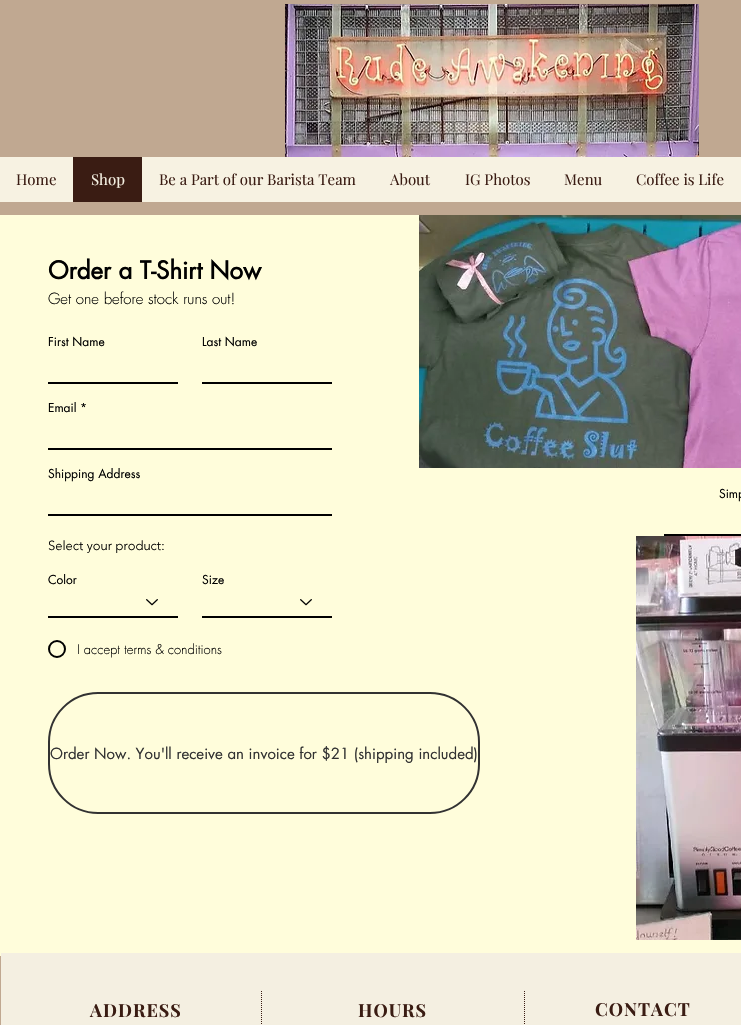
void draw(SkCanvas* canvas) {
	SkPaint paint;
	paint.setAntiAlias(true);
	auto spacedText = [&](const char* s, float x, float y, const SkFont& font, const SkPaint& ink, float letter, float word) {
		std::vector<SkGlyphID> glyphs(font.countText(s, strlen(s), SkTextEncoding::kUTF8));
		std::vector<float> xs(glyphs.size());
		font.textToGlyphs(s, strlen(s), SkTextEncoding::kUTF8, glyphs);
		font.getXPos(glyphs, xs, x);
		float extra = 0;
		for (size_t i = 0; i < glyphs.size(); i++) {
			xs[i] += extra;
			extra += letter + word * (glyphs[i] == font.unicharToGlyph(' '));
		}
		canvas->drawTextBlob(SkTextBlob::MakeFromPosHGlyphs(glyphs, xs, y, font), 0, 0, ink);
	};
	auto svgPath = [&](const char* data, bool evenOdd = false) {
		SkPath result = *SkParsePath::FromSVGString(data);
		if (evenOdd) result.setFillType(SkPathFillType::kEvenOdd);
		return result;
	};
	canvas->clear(0xffc0a891);
	canvas->drawImageRect(SkImages::DeferredFromEncodedData(SkData::MakeFromFileName("img1.png")), SkRect::MakeXYWH(285, 4, 414, 153), SkSamplingOptions());
	paint.setColor(0xfff7f2e2);
	canvas->drawRect(SkRect::MakeXYWH(0, 157, 741, 45), paint);
	SkFont f1(fontMgr->matchFamilyStyle("Playfair Display", SkFontStyle::Normal()), 15);
	f1.setSubpixel(true);
	paint.setColor(0xff3a1c13);
	canvas->drawString("Home", 16, 185, f1, paint);
	canvas->drawRect(SkRect::MakeXYWH(73, 157, 69, 45), paint);
	paint.setColor(0xfff4efe1);
	canvas->drawString("Shop", 91, 185, f1, paint);
	paint.setColor(0xff3a1c13);
	canvas->drawString("Be a Part of our Barista Team", 159, 185, f1, paint);
	canvas->drawString("About", 390, 185, f1, paint);
	canvas->drawString("IG Photos", 465, 185, f1, paint);
	canvas->drawString("Menu", 564, 185, f1, paint);
	canvas->drawString("Coffee is Life", 636, 185, f1, paint);
	paint.setColor(0xfffffddb);
	canvas->drawRect(SkRect::MakeXYWH(0, 215, 741, 741), paint);
	SkFont f2(fontMgr->matchFamilyStyle("futura", SkFontStyle::Bold()), 24);
	f2.setSubpixel(true);
	paint.setColor(0xff000000);
	canvas->drawString("Order a T-Shirt Now", 48, 279, f2, paint);
	canvas->drawImageRect(SkImages::DeferredFromEncodedData(SkData::MakeFromFileName("img2.png")), SkRect::MakeXYWH(419, 215, 322, 253), SkSamplingOptions());
	SkFont f3(fontMgr->matchFamilyStyle("futura", SkFontStyle(300, SkFontStyle::kNormal_Width, SkFontStyle::kUpright_Slant)), 15);
	f3.setSubpixel(true);
	canvas->drawString("Get one before stock runs out!", 48, 304, f3, paint);
	SkFont f4(fontMgr->matchFamilyStyle("futura", SkFontStyle::Normal()), 12);
	f4.setSubpixel(true);
	canvas->drawString("First Name", 48, 346, f4, paint);
	canvas->drawRect(SkRect::MakeXYWH(48, 382, 130, 2), paint);
	canvas->drawString("Last Name", 202, 346, f4, paint);
	canvas->drawRect(SkRect::MakeXYWH(202, 382, 130, 2), paint);
	canvas->drawString("Email *", 48, 412, f4, paint);
	canvas->drawRect(SkRect::MakeXYWH(48, 448, 284, 2), paint);
	canvas->drawString("Shipping Address", 48, 478, f4, paint);
	canvas->drawRect(SkRect::MakeXYWH(48, 514, 284, 2), paint);
	canvas->drawString("Simp", 719, 498, f4, paint);
	canvas->drawRect(SkRect::MakeXYWH(664, 534, 77, 2), paint);
	SkFont f5(fontMgr->matchFamilyStyle("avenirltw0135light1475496", SkFontStyle(300, SkFontStyle::kNormal_Width, SkFontStyle::kUpright_Slant)), 13);
	f5.setSubpixel(true);
	canvas->drawString("Select your product:", 48, 550, f5, paint);
	canvas->drawImageRect(SkImages::DeferredFromEncodedData(SkData::MakeFromFileName("img3.png")), SkRect::MakeXYWH(636, 536, 105, 404), SkSamplingOptions());
	canvas->drawString("Color", 48, 584, f4, paint);
	canvas->drawImageRect(SkImages::DeferredFromEncodedData(SkData::MakeFromFileName("img4.png")), SkRect::MakeXYWH(146, 599, 12, 7), SkSamplingOptions());
	canvas->drawRect(SkRect::MakeXYWH(48, 616, 130, 2), paint);
	canvas->drawString("Size", 202, 584, f4, paint);
	canvas->drawImageRect(SkImages::DeferredFromEncodedData(SkData::MakeFromFileName("img4.png")), SkRect::MakeXYWH(300, 599, 12, 7), SkSamplingOptions());
	canvas->drawRect(SkRect::MakeXYWH(202, 616, 130, 2), paint);
	paint.setStroke(true);
	paint.setStrokeWidth(2);
	canvas->drawCircle(57, 649, 8, paint);
	SkFont f6(fontMgr->matchFamilyStyle("futura", SkFontStyle(300, SkFontStyle::kNormal_Width, SkFontStyle::kUpright_Slant)), 13);
	f6.setSubpixel(true);
	paint.setStroke(false);
	canvas->drawString("I accept terms & conditions", 77, 654, f6, paint);
	paint.setStroke(true);
	paint.setColor(0xff323232);
	canvas->drawRoundRect(SkRect::MakeXYWH(49, 693, 430, 120), 49, 49, paint);
	SkFont f7(fontMgr->matchFamilyStyle("futura", SkFontStyle::Normal()), 15);
	f7.setSubpixel(true);
	paint.setStroke(false);
	canvas->drawString("Order Now. You'll receive an invoice for $21 (shipping included)", 50, 759, f7, paint);
	paint.setColor(0xfff4efe1);
	canvas->drawRect(SkRect::MakeXYWH(1, 953, 740, 72), paint);
	SkFont f8(fontMgr->matchFamilyStyle("Playfair Display", SkFontStyle::Bold()), 18);
	f8.setSubpixel(true);
	paint.setColor(0xff3a1c13);
	spacedText("ADDRESS", 90, 1017, f8, paint, 1, 0);
	paint.setStroke(true);
	paint.setStrokeWidth(1);
	paint.setPathEffect(SkDashPathEffect::Make({{1, 1}}, 0));
	canvas->drawPath(svgPath("M261.5 991V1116"), paint);
	paint.setPathEffect(nullptr);
	paint.setStroke(false);
	spacedText("HOURS", 358, 1017, f8, paint, 1, 0);
	paint.setStroke(true);
	paint.setPathEffect(SkDashPathEffect::Make({{1, 1}}, 0));
	canvas->drawPath(svgPath("M524.5 991V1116"), paint);
	paint.setPathEffect(nullptr);
	paint.setStroke(false);
	spacedText("CONTACT", 595, 1016, f8, paint, 1, 0);
}
